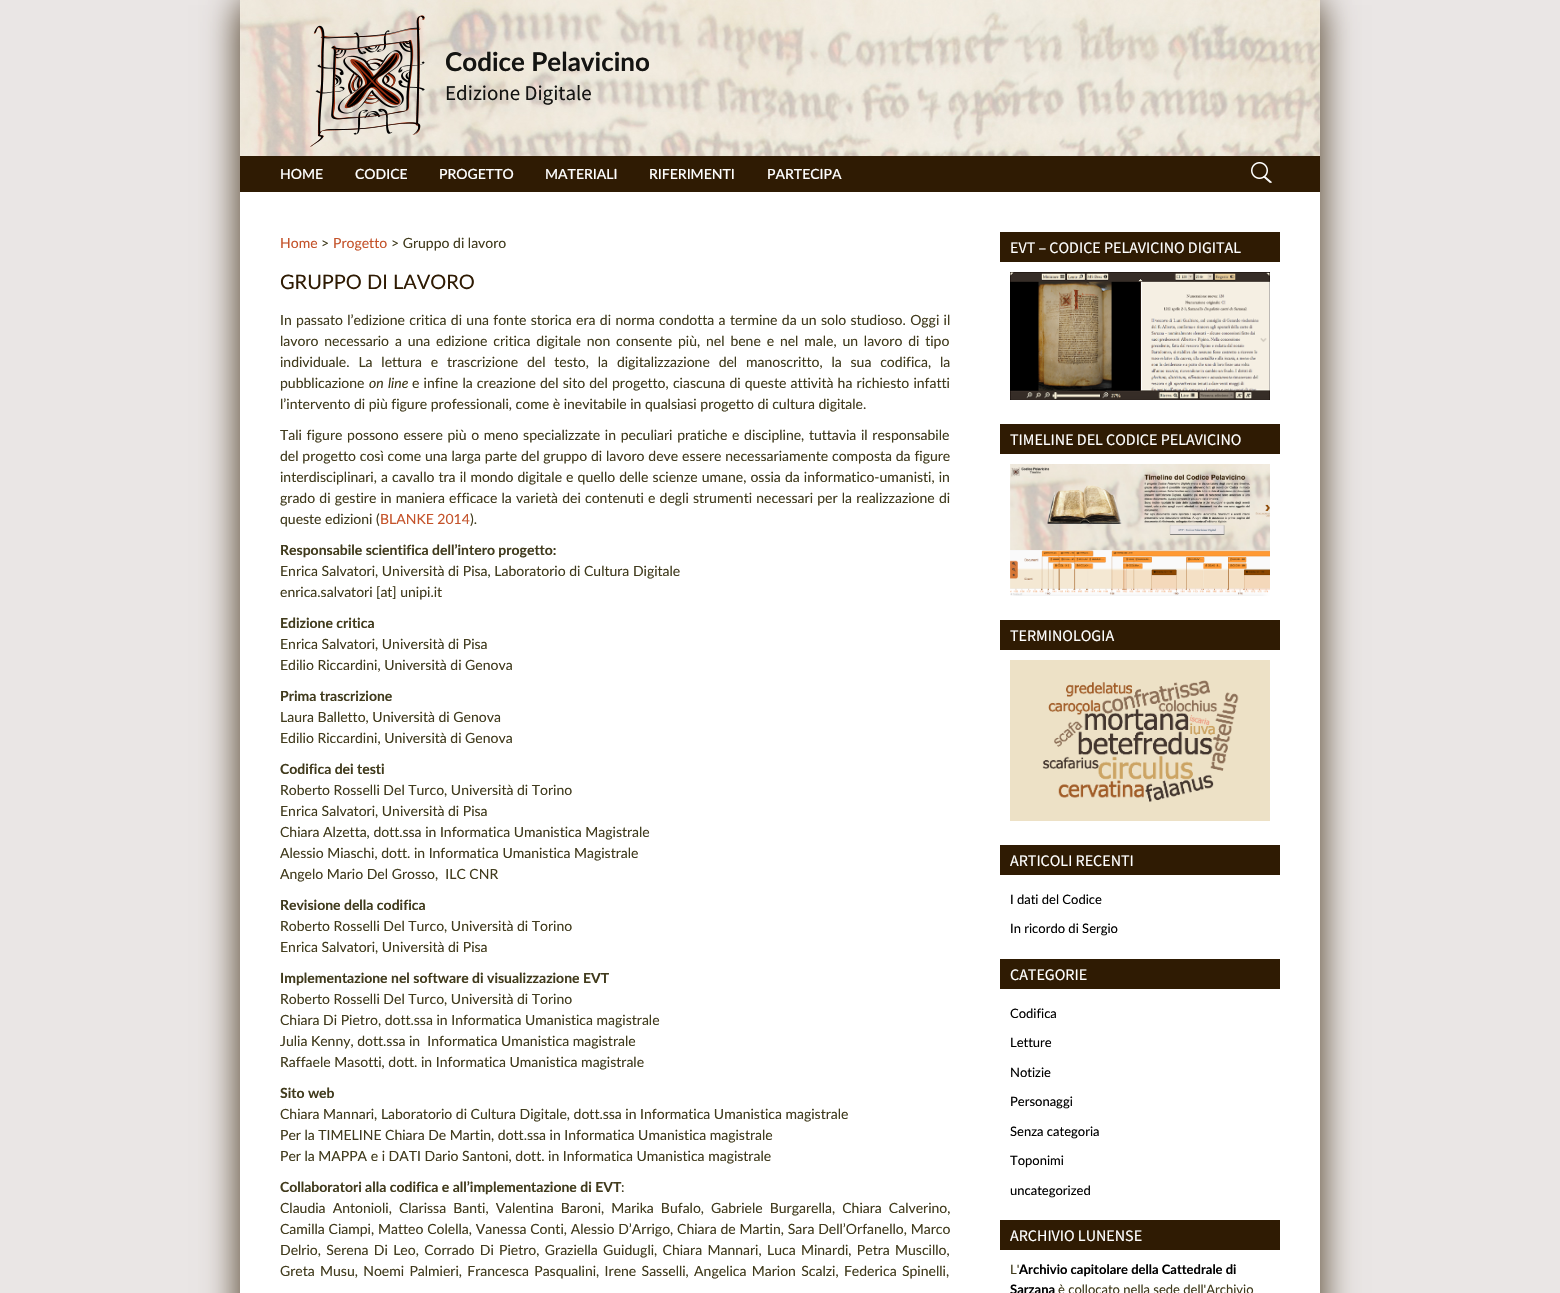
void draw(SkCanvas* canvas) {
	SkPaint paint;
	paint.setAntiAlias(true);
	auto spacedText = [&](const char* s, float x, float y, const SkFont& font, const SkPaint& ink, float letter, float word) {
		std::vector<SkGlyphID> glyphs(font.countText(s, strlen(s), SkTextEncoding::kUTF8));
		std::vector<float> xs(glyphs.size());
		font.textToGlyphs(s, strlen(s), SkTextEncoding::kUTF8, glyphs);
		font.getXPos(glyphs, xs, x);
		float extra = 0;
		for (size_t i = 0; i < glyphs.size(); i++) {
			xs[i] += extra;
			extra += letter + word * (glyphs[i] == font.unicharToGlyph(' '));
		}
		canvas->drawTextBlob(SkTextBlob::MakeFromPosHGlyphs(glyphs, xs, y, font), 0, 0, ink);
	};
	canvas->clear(0xffeae6e5);
	paint.setColor(0xff6b5c49);
	paint.setMaskFilter(SkMaskFilter::MakeBlur(kNormal_SkBlurStyle, 17.5));
	canvas->drawRect(SkRect::MakeXYWH(250, 5, 1070, 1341), paint);
	paint.setMaskFilter(nullptr);
	paint.setMaskFilter(SkMaskFilter::MakeBlur(kNormal_SkBlurStyle, 17.5));
	canvas->drawRect(SkRect::MakeXYWH(240, 5, 1070, 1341), paint);
	paint.setMaskFilter(nullptr);
	paint.setColor(0xffffffff);
	canvas->drawRect(SkRect::MakeXYWH(240, 192, 1080, 1101), paint);
	canvas->drawImageRect(SkImages::DeferredFromEncodedData(SkData::MakeFromFileName("img1.png")), SkRect::MakeXYWH(240, 0, 1080, 156), SkSamplingOptions());
	canvas->drawImageRect(SkImages::DeferredFromEncodedData(SkData::MakeFromFileName("img2.png")), SkRect::MakeXYWH(310, 15, 115, 132), SkSamplingOptions());
	SkFont f1(fontMgr->matchFamilyStyle("Lato", SkFontStyle::Bold()), 26);
	f1.setSubpixel(true);
	paint.setColor(0xff141412);
	canvas->drawString("Codice Pelavicino", 445, 71, f1, paint);
	SkFont f2(fontMgr->matchFamilyStyle("Source Sans Pro", SkFontStyle::Normal()), 21);
	f2.setSubpixel(true);
	canvas->drawString("Edizione Digitale", 445, 100, f2, paint);
	paint.setColor(0xff2f1b03);
	canvas->drawRect(SkRect::MakeXYWH(240, 156, 1080, 36), paint);
	SkFont f3(fontMgr->matchFamilyStyle("Lato", SkFontStyle(500, SkFontStyle::kNormal_Width, SkFontStyle::kUpright_Slant)), 14);
	f3.setSubpixel(true);
	paint.setColor(0xffffffff);
	canvas->drawString("HOME", 280, 179, f3, paint);
	canvas->drawString("CODICE", 355, 179, f3, paint);
	canvas->drawString("PROGETTO", 439, 179, f3, paint);
	canvas->drawString("MATERIALI", 545, 179, f3, paint);
	canvas->drawString("RIFERIMENTI", 649, 179, f3, paint);
	canvas->drawString("PARTECIPA", 767, 179, f3, paint);
	canvas->drawImageRect(SkImages::DeferredFromEncodedData(SkData::MakeFromFileName("img3.png")), SkRect::MakeXYWH(1251, 162, 21, 21), SkSamplingOptions());
	SkFont f4(fontMgr->matchFamilyStyle("Lato", SkFontStyle::Normal()), 14);
	f4.setSubpixel(true);
	paint.setColor(0xffc45229);
	canvas->drawString("Home", 280, 248, f4, paint);
	paint.setColor(0xff413b1d);
	canvas->drawString(">", 321, 248, f4, paint);
	paint.setColor(0xffc45229);
	canvas->drawString("Progetto", 333, 248, f4, paint);
	paint.setColor(0xff413b1d);
	canvas->drawString("> Gruppo di lavoro", 391, 248, f4, paint);
	paint.setColor(0xff2f1b03);
	canvas->drawRect(SkRect::MakeXYWH(1000, 232, 280, 30), paint);
	SkFont f5(fontMgr->matchFamilyStyle("Source Sans Pro", SkFontStyle::Normal()), 16);
	f5.setSubpixel(true);
	paint.setColor(0xffffffff);
	canvas->drawString("EVT – CODICE PELAVICINO DIGITAL", 1010, 253, f5, paint);
	canvas->drawImageRect(SkImages::DeferredFromEncodedData(SkData::MakeFromFileName("img4.png")), SkRect::MakeXYWH(1010, 272, 260, 128), SkSamplingOptions());
	paint.setColor(0xff2f1b03);
	canvas->drawRect(SkRect::MakeXYWH(1000, 424, 280, 30), paint);
	paint.setColor(0xffffffff);
	canvas->drawString("TIMELINE DEL CODICE PELAVICINO", 1010, 445, f5, paint);
	canvas->drawImageRect(SkImages::DeferredFromEncodedData(SkData::MakeFromFileName("img5.png")), SkRect::MakeXYWH(1010, 464, 260, 132), SkSamplingOptions());
	paint.setColor(0xff2f1b03);
	canvas->drawRect(SkRect::MakeXYWH(1000, 620, 280, 30), paint);
	paint.setColor(0xffffffff);
	canvas->drawString("TERMINOLOGIA", 1010, 641, f5, paint);
	canvas->drawImageRect(SkImages::DeferredFromEncodedData(SkData::MakeFromFileName("img6.png")), SkRect::MakeXYWH(1010, 660, 260, 161), SkSamplingOptions());
	paint.setColor(0xff2f1b03);
	canvas->drawRect(SkRect::MakeXYWH(1000, 845, 280, 30), paint);
	paint.setColor(0xffffffff);
	canvas->drawString("ARTICOLI RECENTI", 1010, 866, f5, paint);
	SkFont f6(fontMgr->matchFamilyStyle("Lato", SkFontStyle::Normal()), 13);
	f6.setSubpixel(true);
	paint.setColor(0xff000000);
	canvas->drawString("I dati del Codice", 1010, 904, f6, paint);
	canvas->drawString("In ricordo di Sergio", 1010, 933, f6, paint);
	paint.setColor(0xff2f1b03);
	canvas->drawRect(SkRect::MakeXYWH(1000, 959, 280, 30), paint);
	paint.setColor(0xffffffff);
	canvas->drawString("CATEGORIE", 1010, 980, f5, paint);
	paint.setColor(0xff000000);
	canvas->drawString("Codifica", 1010, 1018, f6, paint);
	canvas->drawString("Letture", 1010, 1047, f6, paint);
	canvas->drawString("Notizie", 1010, 1077, f6, paint);
	canvas->drawString("Personaggi", 1010, 1106, f6, paint);
	canvas->drawString("Senza categoria", 1010, 1136, f6, paint);
	canvas->drawString("Toponimi", 1010, 1165, f6, paint);
	canvas->drawString("uncategorized", 1010, 1195, f6, paint);
	paint.setColor(0xff2f1b03);
	canvas->drawRect(SkRect::MakeXYWH(1000, 1220, 280, 30), paint);
	paint.setColor(0xffffffff);
	canvas->drawString("ARCHIVIO LUNENSE", 1010, 1241, f5, paint);
	paint.setColor(0xff413b1d);
	canvas->drawString("L'", 1010, 1274, f6, paint);
	SkFont f7(fontMgr->matchFamilyStyle("Lato", SkFontStyle::Bold()), 13);
	f7.setSubpixel(true);
	paint.setColor(0xff000000);
	canvas->drawString("Archivio capitolare della Cattedrale di", 1019, 1274, f7, paint);
	canvas->drawString("Sarzana", 1010, 1294, f7, paint);
	paint.setColor(0xff413b1d);
	canvas->drawString("è collocato nella sede dell'Archivio", 1058, 1294, f6, paint);
	SkFont f8(fontMgr->matchFamilyStyle("Lato", SkFontStyle::Normal()), 20);
	f8.setSubpixel(true);
	paint.setColor(0xff2f1b03);
	canvas->drawString("GRUPPO DI LAVORO", 280, 289, f8, paint);
	paint.setColor(0xff413b1d);
	spacedText("In passato l’edizione critica di una fonte storica era di norma condotta a termine da un solo studioso. Oggi il", 280, 325, f4, paint, 0, 0.75);
	spacedText("lavoro necessario a una edizione critica digitale non consente più, nel bene e nel male, un lavoro di tipo", 280, 346, f4, paint, 0, 2.25);
	spacedText("individuale. La lettura e trascrizione del testo, la digitalizzazione del manoscritto, la sua codifica, la", 280, 367, f4, paint, 0, 5.25);
	canvas->drawString("pubblicazione", 280, 388, f4, paint);
	SkFont f9(fontMgr->matchFamilyStyle("Lato", SkFontStyle::Italic()), 14);
	f9.setSubpixel(true);
	spacedText("on line", 369, 388, f9, paint, 0, 1);
	spacedText("e infine la creazione del sito del progetto, ciascuna di queste attività ha richiesto infatti", 412, 388, f4, paint, 0, 0.6);
	canvas->drawString("l’intervento di più figure professionali, come è inevitabile in qualsiasi progetto di cultura digitale.", 280, 409, f4, paint);
	spacedText("Tali figure possono essere più o meno specializzate in peculiari pratiche e discipline, tuttavia il responsabile", 280, 440, f4, paint, 0, 1.1);
	spacedText("del progetto così come una larga parte del gruppo di lavoro deve essere necessariamente composta da figure", 280, 461, f4, paint, 0, 0.25);
	spacedText("interdisciplinari, a cavallo tra il mondo digitale e quello delle scienze umane, ossia da informatico-umanisti, in", 280, 482, f4, paint, 0, 0.5);
	spacedText("grado di gestire in maniera efficace la varietà dei contenuti e degli strumenti necessari per la realizzazione di", 280, 503, f4, paint, 0, 0.6);
	canvas->drawString("queste edizioni (", 280, 524, f4, paint);
	paint.setColor(0xffc45229);
	canvas->drawString("BLANKE 2014", 380, 524, f4, paint);
	paint.setColor(0xff413b1d);
	canvas->drawString(").", 470, 524, f4, paint);
	SkFont f10(fontMgr->matchFamilyStyle("Lato", SkFontStyle::Bold()), 14);
	f10.setSubpixel(true);
	canvas->drawString("Responsabile scientifica dell’intero progetto:", 280, 555, f10, paint);
	canvas->drawString("Enrica Salvatori, Università di Pisa, Laboratorio di Cultura Digitale", 280, 576, f4, paint);
	canvas->drawString("enrica.salvatori [at] unipi.it", 280, 597, f4, paint);
	canvas->drawString("Edizione critica", 280, 628, f10, paint);
	canvas->drawString("Enrica Salvatori, Università di Pisa", 280, 649, f4, paint);
	canvas->drawString("Edilio Riccardini, Università di Genova", 280, 670, f4, paint);
	canvas->drawString("Prima trascrizione", 280, 701, f10, paint);
	canvas->drawString("Laura Balletto, Università di Genova", 280, 722, f4, paint);
	canvas->drawString("Edilio Riccardini, Università di Genova", 280, 743, f4, paint);
	canvas->drawString("Codifica dei testi", 280, 774, f10, paint);
	canvas->drawString("Roberto Rosselli Del Turco, Università di Torino", 280, 795, f4, paint);
	canvas->drawString("Enrica Salvatori, Università di Pisa", 280, 816, f4, paint);
	canvas->drawString("Chiara Alzetta, dott.ssa in Informatica Umanistica Magistrale", 280, 837, f4, paint);
	canvas->drawString("Alessio Miaschi, dott. in Informatica Umanistica Magistrale", 280, 858, f4, paint);
	canvas->drawString("Angelo Mario Del Grosso,  ILC CNR", 280, 879, f4, paint);
	canvas->drawString("Revisione della codifica", 280, 910, f10, paint);
	canvas->drawString("Roberto Rosselli Del Turco, Università di Torino", 280, 931, f4, paint);
	canvas->drawString("Enrica Salvatori, Università di Pisa", 280, 952, f4, paint);
	canvas->drawString("Implementazione nel software di visualizzazione EVT", 280, 983, f10, paint);
	canvas->drawString("Roberto Rosselli Del Turco, Università di Torino", 280, 1004, f4, paint);
	canvas->drawString("Chiara Di Pietro, dott.ssa in Informatica Umanistica magistrale", 280, 1025, f4, paint);
	canvas->drawString("Julia Kenny, dott.ssa in  Informatica Umanistica magistrale", 280, 1046, f4, paint);
	canvas->drawString("Raffaele Masotti, dott. in Informatica Umanistica magistrale", 280, 1067, f4, paint);
	canvas->drawString("Sito web", 280, 1098, f10, paint);
	canvas->drawString("Chiara Mannari, Laboratorio di Cultura Digitale, dott.ssa in Informatica Umanistica magistrale", 280, 1119, f4, paint);
	canvas->drawString("Per la TIMELINE Chiara De Martin, dott.ssa in Informatica Umanistica magistrale", 280, 1140, f4, paint);
	canvas->drawString("Per la MAPPA e i DATI Dario Santoni, dott. in Informatica Umanistica magistrale", 280, 1161, f4, paint);
	canvas->drawString("Collaboratori alla codifica e all’implementazione di EVT", 280, 1192, f10, paint);
	canvas->drawString(":", 621, 1192, f4, paint);
	spacedText("Claudia Antonioli, Clarissa Banti, Valentina Baroni, Marika Bufalo, Gabriele Burgarella, Chiara Calverino,", 280, 1213, f4, paint, 0, 3.5);
	spacedText("Camilla Ciampi, Matteo Colella, Vanessa Conti, Alessio D’Arrigo, Chiara de Martin, Sara Dell’Orfanello, Marco", 280, 1234, f4, paint, 0, 0.25);
	spacedText("Delrio, Serena Di Leo, Corrado Di Pietro, Graziella Guidugli, Chiara Mannari, Luca Minardi, Petra Muscillo,", 280, 1255, f4, paint, 0, 1.75);
	spacedText("Greta Musu, Noemi Palmieri, Francesca Pasqualini, Irene Sasselli, Angelica Marion Scalzi, Federica Spinelli,", 280, 1276, f4, paint, 0, 1.75);
}
